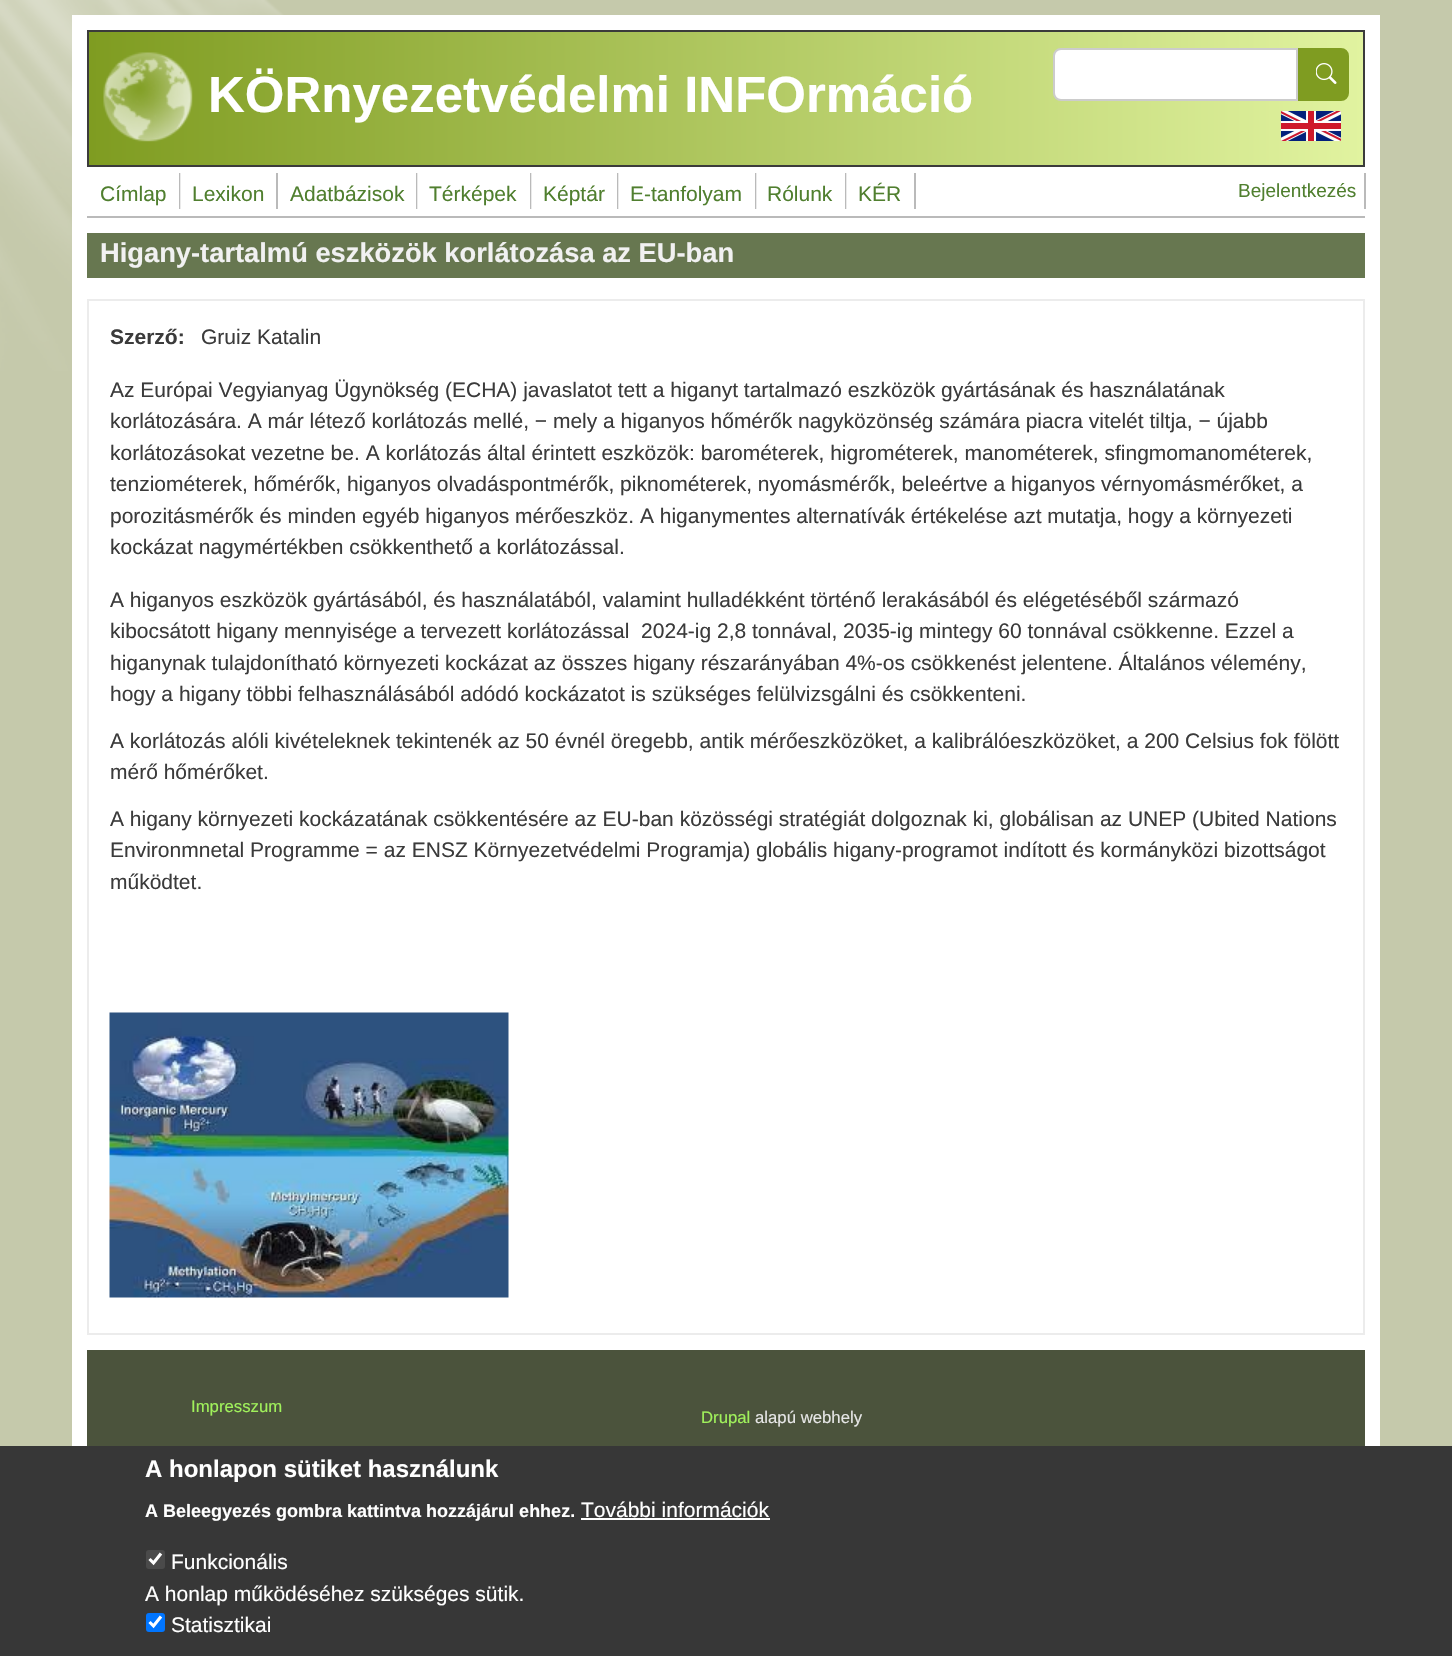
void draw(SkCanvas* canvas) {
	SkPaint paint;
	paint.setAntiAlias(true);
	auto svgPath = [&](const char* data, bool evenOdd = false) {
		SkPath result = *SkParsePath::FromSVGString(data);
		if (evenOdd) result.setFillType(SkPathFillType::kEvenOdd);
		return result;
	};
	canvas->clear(0xffc5c9ab);
	canvas->drawImageRect(SkImages::DeferredFromEncodedData(SkData::MakeFromFileName("img1.png")), SkRect::MakeXYWH(0, 0, 284, 371), SkSamplingOptions());
	paint.setColor(0xffffffff);
	canvas->drawRect(SkRect::MakeXYWH(72, 15, 1308, 1431), paint);
	{
		const SkColor colors[] = {0xff7f9c21, 0xffe1f3a0};
		const float stops[] = {0, 1};
		const SkPoint ends[] = {{89, 98}, {1364, 98}};
		paint.setShader(SkGradientShader::MakeLinear(ends, colors, stops, 2, SkTileMode::kClamp));
		paint.setAlpha(255);
	}
	canvas->drawRect(SkRect::MakeXYWH(89, 32, 1274, 133), paint);
	paint.setStroke(true);
	paint.setStrokeWidth(2);
	paint.setShader(nullptr);
	paint.setColor(0xff3b3b3b);
	canvas->drawRect(SkRect::MakeXYWH(88, 31, 1276, 135), paint);
	canvas->drawImageRect(SkImages::DeferredFromEncodedData(SkData::MakeFromFileName("img2.png")), SkRect::MakeXYWH(103, 52, 90, 90), SkSamplingOptions());
	SkFont f1(fontMgr->matchFamilyStyle("Liberation Sans", SkFontStyle::Bold()), 51);
	f1.setSubpixel(true);
	paint.setStroke(false);
	paint.setColor(0xffffffff);
	canvas->drawString("KÖRnyezetvédelmi INFOrmáció", 208, 112, f1, paint);
	canvas->drawPath(svgPath("M1061 49H1297V100H1061C1057 100 1054 97 1054 93V56C1054 52 1057 49 1061 49Z"), paint);
	paint.setStroke(true);
	paint.setColor(0xffcccccc);
	canvas->drawPath(svgPath("M1061 49H1297V100H1061C1057 100 1054 97 1054 93V56C1054 52 1057 49 1061 49Z"), paint);
	paint.setStroke(false);
	paint.setColor(0xff7f9c21);
	canvas->drawPath(svgPath("M1299 49H1341C1345 49 1348 52 1348 56V93C1348 97 1345 100 1341 100H1299Z"), paint);
	paint.setStroke(true);
	canvas->drawPath(svgPath("M1299 49H1341C1345 49 1348 52 1348 56V93C1348 97 1345 100 1341 100H1299Z"), paint);
	canvas->drawImageRect(SkImages::DeferredFromEncodedData(SkData::MakeFromFileName("img3.png")), SkRect::MakeXYWH(1316, 63, 21, 21), SkSamplingOptions());
	canvas->drawImageRect(SkImages::DeferredFromEncodedData(SkData::MakeFromFileName("img4.png")), SkRect::MakeXYWH(1281, 111, 60, 30), SkSamplingOptions());
	paint.setStroke(false);
	paint.setColor(0xffbababa);
	canvas->drawRect(SkRect::MakeXYWH(87, 216, 1278, 2), paint);
	canvas->drawRect(SkRect::MakeXYWH(179, 173, 2, 36), paint);
	SkFont f2(fontMgr->matchFamilyStyle("Liberation Sans", SkFontStyle::Normal()), 21);
	f2.setSubpixel(true);
	paint.setColor(0xff507f2f);
	canvas->drawString("Címlap", 100, 201, f2, paint);
	paint.setColor(0xb3ffffff);
	canvas->drawRect(SkRect::MakeXYWH(180, 173, 1, 36), paint);
	paint.setColor(0xffbababa);
	canvas->drawRect(SkRect::MakeXYWH(276, 173, 2, 36), paint);
	paint.setColor(0xff507f2f);
	canvas->drawString("Lexikon", 192, 201, f2, paint);
	paint.setColor(0xffbababa);
	canvas->drawRect(SkRect::MakeXYWH(416, 173, 1, 36), paint);
	paint.setColor(0xffeaeaea);
	canvas->drawRect(SkRect::MakeXYWH(417, 173, 1, 36), paint);
	paint.setColor(0xff507f2f);
	canvas->drawString("Adatbázisok", 290, 201, f2, paint);
	paint.setColor(0xffbababa);
	canvas->drawRect(SkRect::MakeXYWH(530, 173, 1, 36), paint);
	paint.setColor(0xffeaeaea);
	canvas->drawRect(SkRect::MakeXYWH(531, 173, 1, 36), paint);
	paint.setColor(0xff507f2f);
	canvas->drawString("Térképek", 429, 201, f2, paint);
	paint.setColor(0xffbababa);
	canvas->drawRect(SkRect::MakeXYWH(617, 173, 1, 36), paint);
	paint.setColor(0xffeaeaea);
	canvas->drawRect(SkRect::MakeXYWH(618, 173, 1, 36), paint);
	paint.setColor(0xff507f2f);
	canvas->drawString("Képtár", 543, 201, f2, paint);
	paint.setColor(0xffbababa);
	canvas->drawRect(SkRect::MakeXYWH(755, 173, 1, 36), paint);
	paint.setColor(0xffeaeaea);
	canvas->drawRect(SkRect::MakeXYWH(756, 173, 1, 36), paint);
	paint.setColor(0xff507f2f);
	canvas->drawString("E-tanfolyam", 630, 201, f2, paint);
	paint.setColor(0xffbababa);
	canvas->drawRect(SkRect::MakeXYWH(845, 173, 1, 36), paint);
	paint.setColor(0xffeaeaea);
	canvas->drawRect(SkRect::MakeXYWH(846, 173, 1, 36), paint);
	paint.setColor(0xff507f2f);
	canvas->drawString("Rólunk", 767, 201, f2, paint);
	paint.setColor(0xffbababa);
	canvas->drawRect(SkRect::MakeXYWH(914, 173, 2, 36), paint);
	paint.setColor(0xff507f2f);
	canvas->drawString("KÉR", 858, 201, f2, paint);
	paint.setColor(0xffbababa);
	canvas->drawRect(SkRect::MakeXYWH(1364, 173, 2, 36), paint);
	SkFont f3(fontMgr->matchFamilyStyle("Liberation Sans", SkFontStyle::Normal()), 19);
	f3.setSubpixel(true);
	paint.setColor(0xff507f2f);
	canvas->drawString("Bejelentkezés", 1238, 197, f3, paint);
	paint.setColor(0xff677750);
	canvas->drawRect(SkRect::MakeXYWH(87, 233, 1278, 45), paint);
	SkFont f4(fontMgr->matchFamilyStyle("Liberation Sans", SkFontStyle::Bold()), 27.3);
	f4.setSubpixel(true);
	paint.setColor(0xfff1f1f1);
	canvas->drawString("Higany-tartalmú eszközök korlátozása az EU-ban", 100, 262, f4, paint);
	paint.setStroke(true);
	paint.setColor(0xffececec);
	canvas->drawRect(SkRect::MakeXYWH(88, 300, 1276, 1034), paint);
	SkFont f5(fontMgr->matchFamilyStyle("Liberation Sans", SkFontStyle::Bold()), 21);
	f5.setSubpixel(true);
	paint.setStroke(false);
	paint.setColor(0xff3b3b3b);
	canvas->drawString("Szerző:", 110, 344, f5, paint);
	canvas->drawString("Gruiz Katalin", 201, 344, f2, paint);
	canvas->drawString("Az Európai Vegyianyag Ügynökség (ECHA) javaslatot tett a higanyt tartalmazó eszközök gyártásának és használatának", 110, 397, f2, paint);
	canvas->drawString("korlátozására. A már létező korlátozás mellé, − mely a higanyos hőmérők nagyközönség számára piacra vitelét tiltja, − újabb", 110, 428, f2, paint);
	canvas->drawString("korlátozásokat vezetne be. A korlátozás által érintett eszközök: barométerek, higrométerek, manométerek, sfingmomanométerek,", 110, 460, f2, paint);
	canvas->drawString("tenziométerek, hőmérők, higanyos olvadáspontmérők, piknométerek, nyomásmérők, beleértve a higanyos vérnyomásmérőket, a", 110, 491, f2, paint);
	canvas->drawString("porozitásmérők és minden egyéb higanyos mérőeszköz. A higanymentes alternatívák értékelése azt mutatja, hogy a környezeti", 110, 523, f2, paint);
	canvas->drawString("kockázat nagymértékben csökkenthető a korlátozással.", 110, 554, f2, paint);
	canvas->drawString("A higanyos eszközök gyártásából, és használatából, valamint hulladékként történő lerakásából és elégetéséből származó", 110, 607, f2, paint);
	canvas->drawString("kibocsátott higany mennyisége a tervezett korlátozással  2024-ig 2,8 tonnával, 2035-ig mintegy 60 tonnával csökkenne. Ezzel a", 110, 638, f2, paint);
	canvas->drawString("higanynak tulajdonítható környezeti kockázat az összes higany részarányában 4%-os csökkenést jelentene. Általános vélemény,", 110, 670, f2, paint);
	canvas->drawString("hogy a higany többi felhasználásából adódó kockázatot is szükséges felülvizsgálni és csökkenteni.", 110, 701, f2, paint);
	canvas->drawString("A korlátozás alóli kivételeknek tekintenék az 50 évnél öregebb, antik mérőeszközöket, a kalibrálóeszközöket, a 200 Celsius fok fölött", 110, 748, f2, paint);
	canvas->drawString("mérő hőmérőket.", 110, 779, f2, paint);
	canvas->drawString("A higany környezeti kockázatának csökkentésére az EU-ban közösségi stratégiát dolgoznak ki, globálisan az UNEP (Ubited Nations", 110, 826, f2, paint);
	canvas->drawString("Environmnetal Programme = az ENSZ Környezetvédelmi Programja) globális higany-programot indított és kormányközi bizottságot", 110, 857, f2, paint);
	canvas->drawString("működtet.", 110, 889, f2, paint);
	canvas->drawImageRect(SkImages::DeferredFromEncodedData(SkData::MakeFromFileName("img5.png")), SkRect::MakeXYWH(109, 1012, 400, 286), SkSamplingOptions());
	paint.setColor(0xff4b533c);
	canvas->drawRect(SkRect::MakeXYWH(87, 1350, 1278, 96), paint);
	SkFont f6(fontMgr->matchFamilyStyle("Liberation Sans", SkFontStyle::Normal()), 16.75);
	f6.setSubpixel(true);
	paint.setColor(0xffa0f15b);
	canvas->drawString("Impresszum", 191, 1412, f6, paint);
	canvas->drawString("Drupal", 701, 1423, f6, paint);
	paint.setColor(0xffe6e6e6);
	canvas->drawString("alapú webhely", 755, 1423, f6, paint);
	paint.setColor(0xff373737);
	canvas->drawRect(SkRect::MakeXYWH(0, 1446, 1452, 210), paint);
	SkFont f7(fontMgr->matchFamilyStyle("Liberation Sans", SkFontStyle::Bold()), 24);
	f7.setSubpixel(true);
	paint.setColor(0xffffffff);
	canvas->drawString("A honlapon sütiket használunk", 145, 1477, f7, paint);
	SkFont f8(fontMgr->matchFamilyStyle("Liberation Sans", SkFontStyle::Bold()), 18);
	f8.setSubpixel(true);
	canvas->drawString("A Beleegyezés gombra kattintva hozzájárul ehhez.", 145, 1517, f8, paint);
	canvas->drawString("További információk", 581, 1517, f2, paint);
	canvas->drawRect(SkRect::MakeXYWH(581, 1518, 189, 2), paint);
	paint.setColor(0xff4a4a4a);
	canvas->drawRoundRect(SkRect::MakeXYWH(146, 1550, 19, 19), 3, 3, paint);
	paint.setStroke(true);
	paint.setStrokeWidth(3.1);
	paint.setColor(0xffffffff);
	canvas->drawPath(svgPath("M149.5 1559L153.5 1563L161 1553.5"), paint);
	paint.setStroke(false);
	canvas->drawString("Funkcionális", 171, 1569, f2, paint);
	canvas->drawString("A honlap működéséhez szükséges sütik.", 145, 1601, f2, paint);
	paint.setColor(0xff0075ff);
	canvas->drawRoundRect(SkRect::MakeXYWH(146, 1613, 19, 19), 3, 3, paint);
	paint.setStroke(true);
	paint.setColor(0xffffffff);
	canvas->drawPath(svgPath("M149.5 1622L153.5 1626L161 1616.5"), paint);
	paint.setStroke(false);
	canvas->drawString("Statisztikai", 171, 1632, f2, paint);
}
